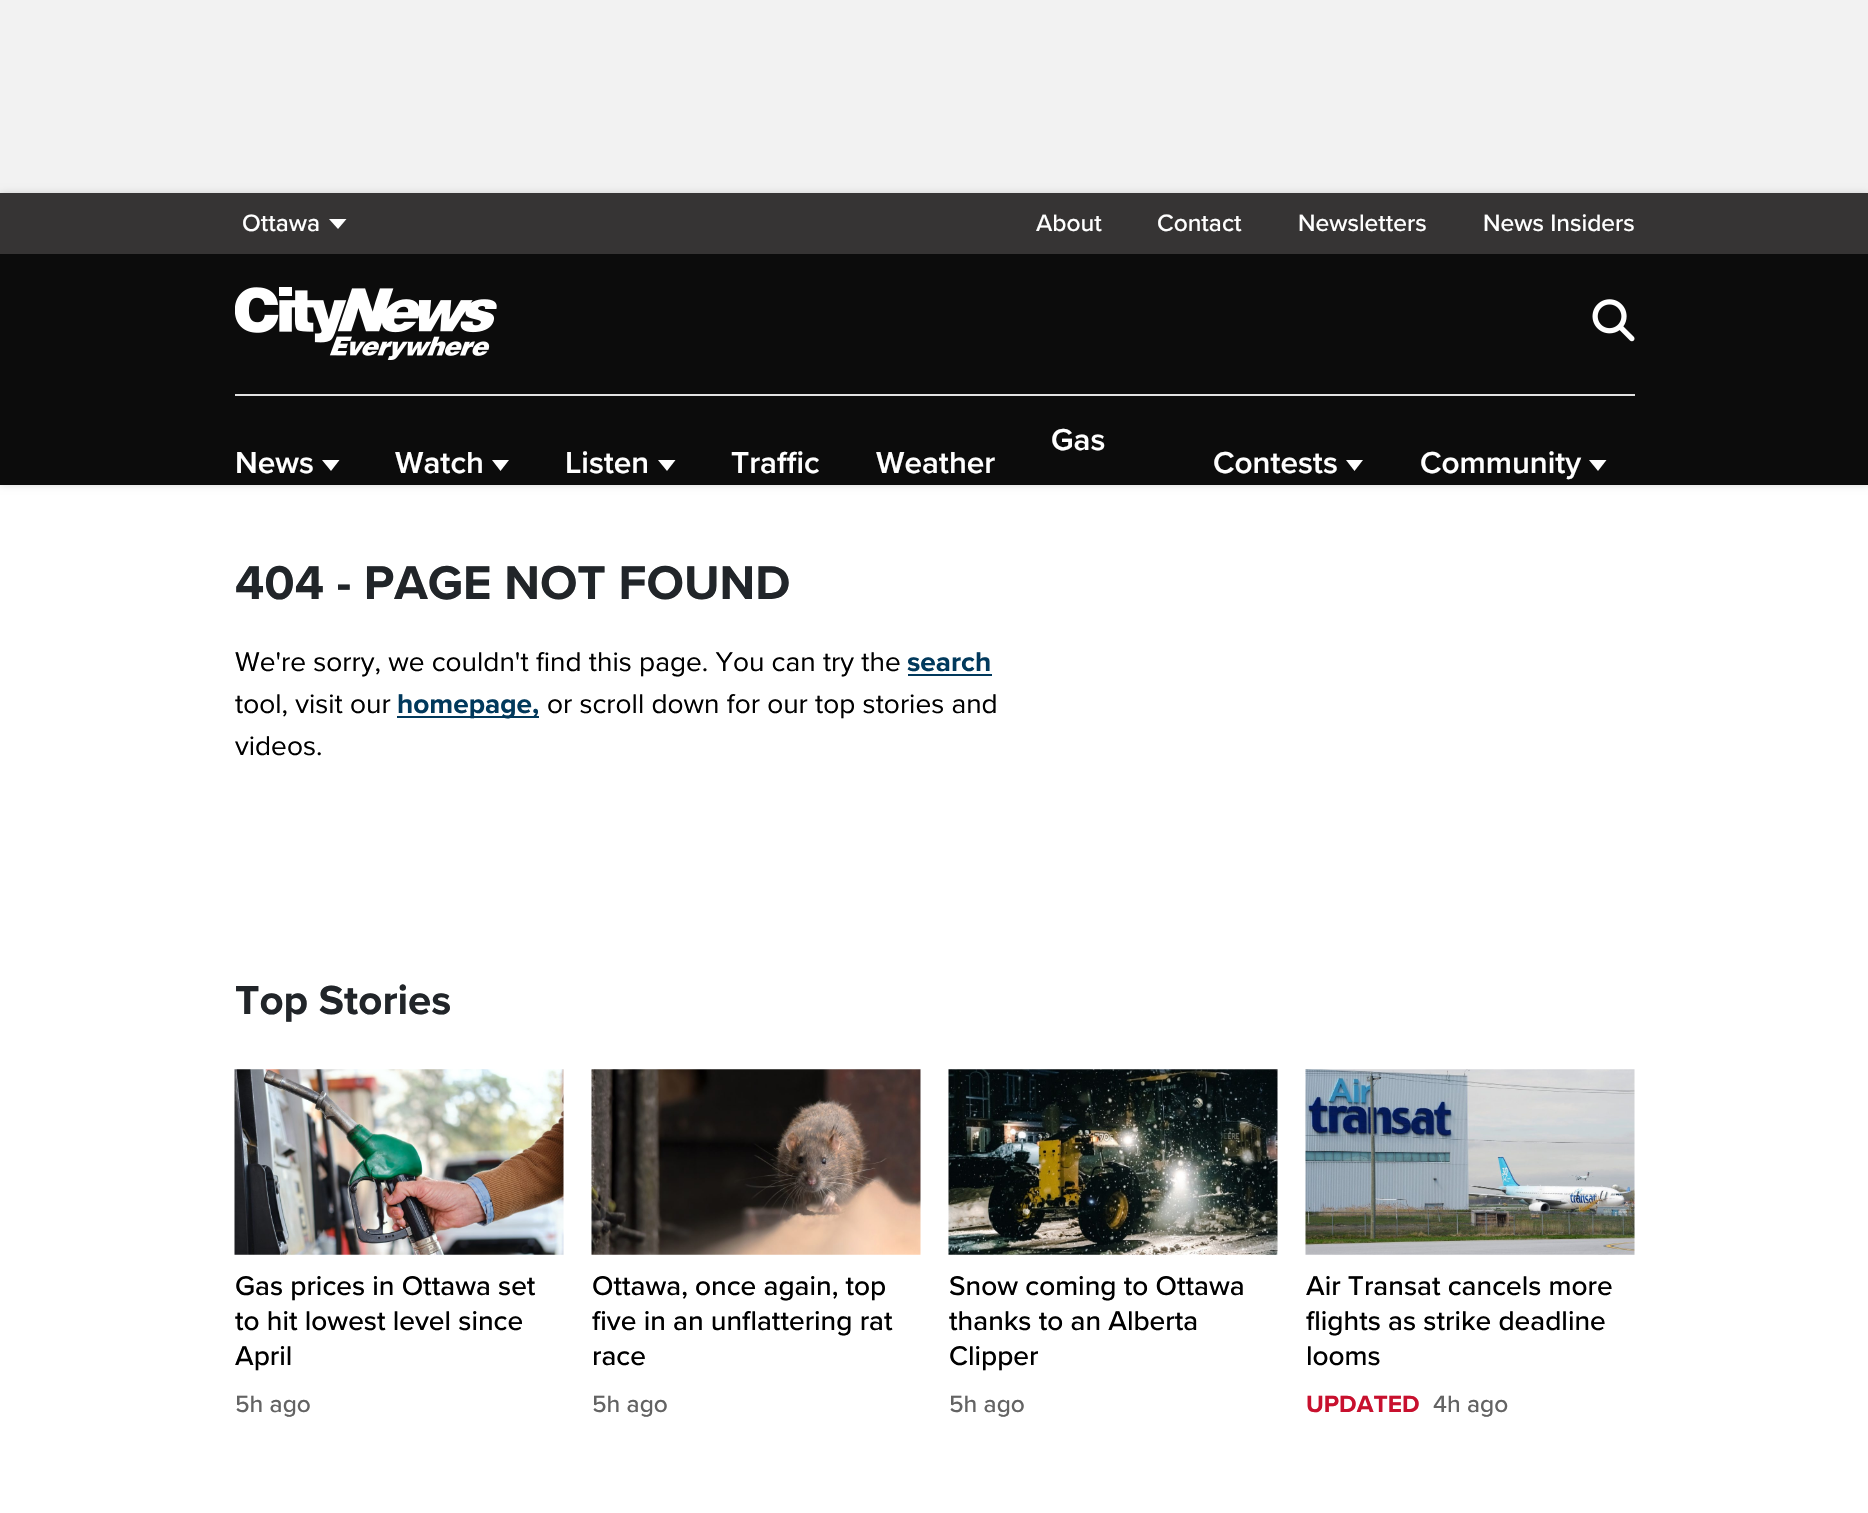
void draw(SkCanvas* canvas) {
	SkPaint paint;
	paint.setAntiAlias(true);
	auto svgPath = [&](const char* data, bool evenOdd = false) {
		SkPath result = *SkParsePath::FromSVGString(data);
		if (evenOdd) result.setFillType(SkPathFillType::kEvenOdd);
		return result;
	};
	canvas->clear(0xffffffff);
	paint.setColor(0xfff2f2f2);
	canvas->drawRect(SkRect::MakeXYWH(0, 0, 1868, 193), paint);
	paint.setColor(0x26000000);
	paint.setMaskFilter(SkMaskFilter::MakeBlur(kNormal_SkBlurStyle, 3.5));
	canvas->drawRect(SkRect::MakeXYWH(0, 193, 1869, 292), paint);
	paint.setMaskFilter(nullptr);
	paint.setColor(0xff0c0c0c);
	canvas->drawRect(SkRect::MakeXYWH(0, 254, 1868, 231), paint);
	paint.setColor(0xff363434);
	canvas->drawRect(SkRect::MakeXYWH(0, 193, 1868, 61), paint);
	SkFont f1(fontMgr->matchFamilyStyle("Proxima Nova", SkFontStyle(500, SkFontStyle::kNormal_Width, SkFontStyle::kUpright_Slant)), 24.5);
	f1.setSubpixel(true);
	paint.setColor(0xffffffff);
	canvas->drawString("Ottawa", 242, 231, f1, paint);
	canvas->drawPath(svgPath("M329 219H346.5L338 229Z"), paint);
	canvas->drawString("About", 1036, 231, f1, paint);
	canvas->drawString("Contact", 1157, 231, f1, paint);
	canvas->drawString("Newsletters", 1298, 231, f1, paint);
	canvas->drawString("News Insiders", 1483, 231, f1, paint);
	canvas->drawImageRect(SkImages::DeferredFromEncodedData(SkData::MakeFromFileName("img1.png")), SkRect::MakeXYWH(235, 287, 262, 73), SkSamplingOptions());
	canvas->drawImageRect(SkImages::DeferredFromEncodedData(SkData::MakeFromFileName("img2.png")), SkRect::MakeXYWH(1592, 299, 43, 43), SkSamplingOptions());
	paint.setColor(0xffe2e2e2);
	canvas->drawRect(SkRect::MakeXYWH(235, 394, 1400, 2), paint);
	SkFont f2(fontMgr->matchFamilyStyle("Proxima Nova", SkFontStyle(600, SkFontStyle::kNormal_Width, SkFontStyle::kUpright_Slant)), 31.5);
	f2.setSubpixel(true);
	paint.setColor(0xffffffff);
	canvas->drawString("Gas", 1051, 450, f2, paint);
	canvas->drawString("News", 235, 473, f2, paint);
	canvas->drawPath(svgPath("M322 460H339.5L331 471Z"), paint);
	canvas->drawString("Watch", 395, 473, f2, paint);
	canvas->drawPath(svgPath("M492 460H509L500.5 471Z"), paint);
	canvas->drawString("Listen", 565, 473, f2, paint);
	canvas->drawPath(svgPath("M658 460H675.5L667 471Z"), paint);
	canvas->drawString("Traffic", 731, 473, f2, paint);
	canvas->drawString("Weather", 876, 473, f2, paint);
	canvas->drawString("Contests", 1213, 473, f2, paint);
	canvas->drawPath(svgPath("M1346 460H1363L1354.5 471Z"), paint);
	canvas->drawString("Community", 1420, 473, f2, paint);
	canvas->drawPath(svgPath("M1589 460H1606.5L1598 471Z"), paint);
	SkFont f3(fontMgr->matchFamilyStyle("Proxima Nova", SkFontStyle::Bold()), 49);
	f3.setSubpixel(true);
	paint.setColor(0xff212529);
	canvas->drawString("404 - PAGE NOT FOUND", 235, 599, f3, paint);
	SkFont f4(fontMgr->matchFamilyStyle("Proxima Nova", SkFontStyle::Normal()), 28);
	f4.setSubpixel(true);
	paint.setColor(0xff000000);
	canvas->drawString("We're sorry, we couldn't find this page. You can try the", 235, 671, f4, paint);
	SkFont f5(fontMgr->matchFamilyStyle("Proxima Nova", SkFontStyle::Bold()), 28);
	f5.setSubpixel(true);
	paint.setColor(0xff01395c);
	canvas->drawString("search", 907, 671, f5, paint);
	canvas->drawRect(SkRect::MakeXYWH(908, 674, 84, 2), paint);
	paint.setColor(0xff000000);
	canvas->drawString("tool, visit our", 235, 713, f4, paint);
	paint.setColor(0xff01395c);
	canvas->drawRect(SkRect::MakeXYWH(397, 716, 142, 2), paint);
	canvas->drawString("homepage,", 397, 713, f5, paint);
	paint.setColor(0xff000000);
	canvas->drawString("or scroll down for our top stories and", 547, 713, f4, paint);
	canvas->drawString("videos.", 235, 755, f4, paint);
	SkFont f6(fontMgr->matchFamilyStyle("Proxima Nova", SkFontStyle::Bold()), 42);
	f6.setSubpixel(true);
	paint.setColor(0xff212529);
	canvas->drawString("Top Stories", 235, 1014, f6, paint);
	canvas->drawImageRect(SkImages::DeferredFromEncodedData(SkData::MakeFromFileName("img3.png")), SkRect::MakeXYWH(234, 1069, 330, 186), SkSamplingOptions());
	SkFont f7(fontMgr->matchFamilyStyle("Proxima Nova", SkFontStyle(500, SkFontStyle::kNormal_Width, SkFontStyle::kUpright_Slant)), 28);
	f7.setSubpixel(true);
	paint.setColor(0xff000000);
	canvas->drawString("Gas prices in Ottawa set", 235, 1295, f7, paint);
	canvas->save();
	canvas->clipRect(SkRect::MakeXYWH(235, 1269, 329, 105));
	canvas->drawString("to hit lowest level since", 235, 1330, f7, paint);
	canvas->restore();
	canvas->drawString("April", 235, 1365, f7, paint);
	paint.setColor(0xff636363);
	canvas->drawString("5h ago", 235, 1412, f1, paint);
	canvas->drawImageRect(SkImages::DeferredFromEncodedData(SkData::MakeFromFileName("img4.png")), SkRect::MakeXYWH(591, 1069, 330, 186), SkSamplingOptions());
	paint.setColor(0xff000000);
	canvas->drawString("Ottawa, once again, top", 592, 1295, f7, paint);
	canvas->drawString("five in an unflattering rat", 592, 1330, f7, paint);
	canvas->drawString("race", 592, 1365, f7, paint);
	paint.setColor(0xff636363);
	canvas->drawString("5h ago", 592, 1412, f1, paint);
	canvas->drawImageRect(SkImages::DeferredFromEncodedData(SkData::MakeFromFileName("img5.png")), SkRect::MakeXYWH(948, 1069, 330, 186), SkSamplingOptions());
	paint.setColor(0xff000000);
	canvas->drawString("Snow coming to Ottawa", 949, 1295, f7, paint);
	canvas->save();
	canvas->clipRect(SkRect::MakeXYWH(949, 1269, 329, 105));
	canvas->drawString("thanks to an Alberta", 949, 1330, f7, paint);
	canvas->restore();
	canvas->drawString("Clipper", 949, 1365, f7, paint);
	paint.setColor(0xff636363);
	canvas->drawString("5h ago", 949, 1412, f1, paint);
	canvas->drawImageRect(SkImages::DeferredFromEncodedData(SkData::MakeFromFileName("img6.png")), SkRect::MakeXYWH(1305, 1069, 330, 186), SkSamplingOptions());
	paint.setColor(0xff000000);
	canvas->drawString("Air Transat cancels more", 1306, 1295, f7, paint);
	canvas->drawString("flights as strike deadline", 1306, 1330, f7, paint);
	canvas->drawString("looms", 1306, 1365, f7, paint);
	SkFont f8(fontMgr->matchFamilyStyle("Proxima Nova", SkFontStyle::Bold()), 24.5);
	f8.setSubpixel(true);
	paint.setColor(0xffc8102e);
	canvas->drawString("UPDATED", 1306, 1412, f8, paint);
	paint.setColor(0xff636363);
	canvas->drawString("4h ago", 1433, 1412, f1, paint);
}
